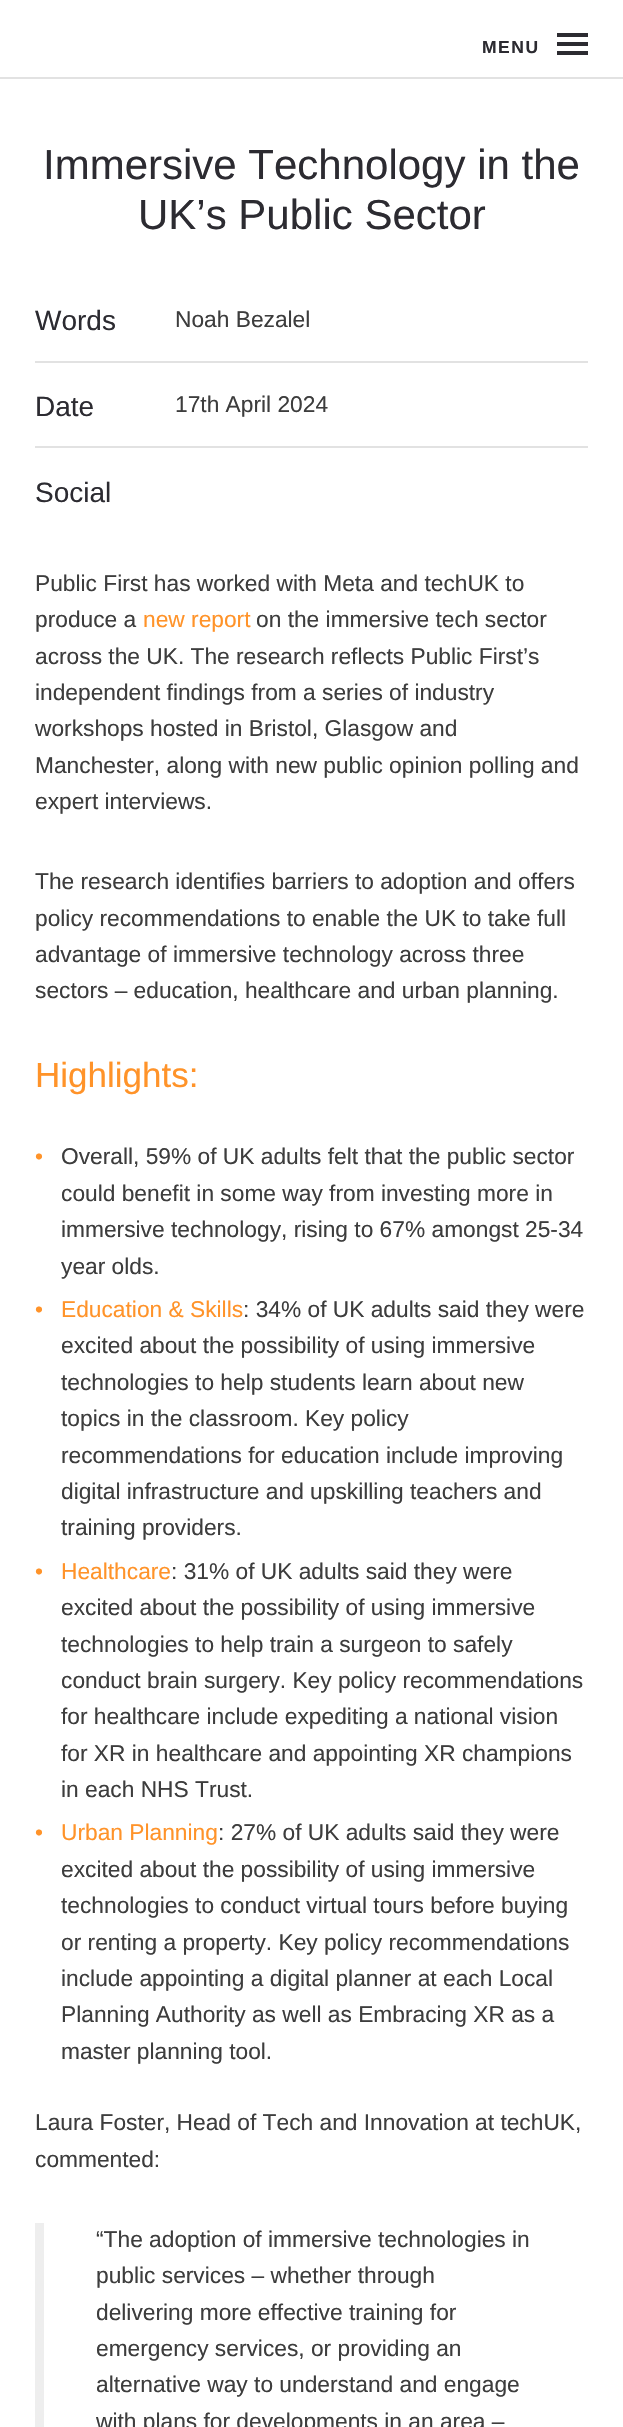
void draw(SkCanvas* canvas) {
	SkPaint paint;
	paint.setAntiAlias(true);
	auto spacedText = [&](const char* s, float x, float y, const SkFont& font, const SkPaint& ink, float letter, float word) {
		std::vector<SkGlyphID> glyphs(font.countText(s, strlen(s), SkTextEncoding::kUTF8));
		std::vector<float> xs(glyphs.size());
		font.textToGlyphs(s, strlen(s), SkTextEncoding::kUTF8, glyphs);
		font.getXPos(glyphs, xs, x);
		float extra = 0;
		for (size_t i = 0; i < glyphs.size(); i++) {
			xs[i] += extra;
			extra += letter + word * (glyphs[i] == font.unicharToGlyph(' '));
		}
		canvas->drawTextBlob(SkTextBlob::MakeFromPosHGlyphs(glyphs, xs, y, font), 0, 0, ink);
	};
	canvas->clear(0xffffffff);
	paint.setColor(0xffe2e2e2);
	canvas->drawRect(SkRect::MakeXYWH(0, 77, 623, 2), paint);
	paint.setColor(0xff2c2b31);
	canvas->drawRect(SkRect::MakeXYWH(557, 33, 31, 4), paint);
	SkFont f1(fontMgr->matchFamilyStyle("Liberation Sans", SkFontStyle::Bold()), 17.5);
	f1.setSubpixel(true);
	spacedText("MENU", 482, 53, f1, paint, 1.5, 0);
	canvas->drawRect(SkRect::MakeXYWH(557, 42, 31, 4), paint);
	canvas->drawRect(SkRect::MakeXYWH(557, 51, 31, 4), paint);
	SkFont f2(fontMgr->matchFamilyStyle("Liberation Sans", SkFontStyle::Normal()), 42);
	f2.setSubpixel(true);
	canvas->drawString("Immersive Technology in the", 43, 179, f2, paint);
	canvas->drawString("UK’s Public Sector", 138, 229, f2, paint);
	paint.setColor(0xffe2e2e2);
	canvas->drawRect(SkRect::MakeXYWH(35, 361, 553, 2), paint);
	SkFont f3(fontMgr->matchFamilyStyle("Liberation Sans", SkFontStyle::Normal()), 28);
	f3.setSubpixel(true);
	paint.setColor(0xff2c2b31);
	canvas->drawString("Words", 35, 330, f3, paint);
	SkFont f4(fontMgr->matchFamilyStyle("Liberation Sans", SkFontStyle::Normal()), 22.75);
	f4.setSubpixel(true);
	paint.setColor(0xff3d3d3d);
	canvas->drawString("Noah Bezalel", 175, 327, f4, paint);
	paint.setColor(0xffe2e2e2);
	canvas->drawRect(SkRect::MakeXYWH(35, 446, 553, 2), paint);
	paint.setColor(0xff2c2b31);
	canvas->drawString("Date", 35, 416, f3, paint);
	paint.setColor(0xff3d3d3d);
	canvas->drawString("17th April 2024", 175, 412, f4, paint);
	paint.setColor(0xff2c2b31);
	canvas->drawString("Social", 35, 502, f3, paint);
	paint.setColor(0xff3d3d3d);
	canvas->drawString("Public First has worked with Meta and techUK to", 35, 591, f4, paint);
	canvas->drawString("produce a", 35, 627, f4, paint);
	paint.setColor(0xffff9329);
	canvas->drawString("new report", 143, 627, f4, paint);
	paint.setColor(0xff3d3d3d);
	canvas->drawString("on the immersive tech sector", 256, 627, f4, paint);
	canvas->drawString("across the UK. The research reflects Public First’s", 35, 664, f4, paint);
	canvas->drawString("independent findings from a series of industry", 35, 700, f4, paint);
	canvas->drawString("workshops hosted in Bristol, Glasgow and", 35, 736, f4, paint);
	canvas->drawString("Manchester, along with new public opinion polling and", 35, 773, f4, paint);
	canvas->drawString("expert interviews.", 35, 809, f4, paint);
	canvas->drawString("The research identifies barriers to adoption and offers", 35, 889, f4, paint);
	canvas->drawString("policy recommendations to enable the UK to take full", 35, 926, f4, paint);
	canvas->drawString("advantage of immersive technology across three", 35, 962, f4, paint);
	canvas->drawString("sectors – education, healthcare and urban planning.", 35, 998, f4, paint);
	SkFont f5(fontMgr->matchFamilyStyle("Liberation Sans", SkFontStyle::Normal()), 35);
	f5.setSubpixel(true);
	paint.setColor(0xffff9329);
	canvas->drawString("Highlights:", 35, 1087, f5, paint);
	canvas->drawString("•", 35, 1164, f4, paint);
	paint.setColor(0xff3d3d3d);
	canvas->drawString("Overall, 59% of UK adults felt that the public sector", 61, 1164, f4, paint);
	canvas->drawString("could benefit in some way from investing more in", 61, 1201, f4, paint);
	canvas->drawString("immersive technology, rising to 67% amongst 25-34", 61, 1237, f4, paint);
	canvas->drawString("year olds.", 61, 1274, f4, paint);
	paint.setColor(0xffff9329);
	canvas->drawString("•", 35, 1317, f4, paint);
	canvas->drawString("Education & Skills", 61, 1317, f4, paint);
	paint.setColor(0xff3d3d3d);
	canvas->drawString(": 34% of UK adults said they were", 243, 1317, f4, paint);
	canvas->drawString("excited about the possibility of using immersive", 61, 1353, f4, paint);
	canvas->drawString("technologies to help students learn about new", 61, 1390, f4, paint);
	canvas->drawString("topics in the classroom. Key policy", 61, 1426, f4, paint);
	canvas->drawString("recommendations for education include improving", 61, 1463, f4, paint);
	canvas->drawString("digital infrastructure and upskilling teachers and", 61, 1499, f4, paint);
	canvas->drawString("training providers.", 61, 1535, f4, paint);
	paint.setColor(0xffff9329);
	canvas->drawString("•", 35, 1579, f4, paint);
	canvas->drawString("Healthcare", 61, 1579, f4, paint);
	paint.setColor(0xff3d3d3d);
	canvas->drawString(": 31% of UK adults said they were", 171, 1579, f4, paint);
	canvas->drawString("excited about the possibility of using immersive", 61, 1615, f4, paint);
	canvas->drawString("technologies to help train a surgeon to safely", 61, 1652, f4, paint);
	canvas->drawString("conduct brain surgery. Key policy recommendations", 61, 1688, f4, paint);
	canvas->drawString("for healthcare include expediting a national vision", 61, 1724, f4, paint);
	canvas->drawString("for XR in healthcare and appointing XR champions", 61, 1761, f4, paint);
	canvas->drawString("in each NHS Trust.", 61, 1797, f4, paint);
	paint.setColor(0xffff9329);
	canvas->drawString("•", 35, 1840, f4, paint);
	canvas->drawString("Urban Planning", 61, 1840, f4, paint);
	paint.setColor(0xff3d3d3d);
	canvas->drawString(": 27% of UK adults said they were", 218, 1840, f4, paint);
	canvas->drawString("excited about the possibility of using immersive", 61, 1877, f4, paint);
	canvas->drawString("technologies to conduct virtual tours before buying", 61, 1913, f4, paint);
	canvas->drawString("or renting a property. Key policy recommendations", 61, 1950, f4, paint);
	canvas->drawString("include appointing a digital planner at each Local", 61, 1986, f4, paint);
	canvas->drawString("Planning Authority as well as Embracing XR as a", 61, 2022, f4, paint);
	canvas->drawString("master planning tool.", 61, 2059, f4, paint);
	canvas->drawString("Laura Foster, Head of Tech and Innovation at techUK,", 35, 2130, f4, paint);
	canvas->drawString("commented:", 35, 2167, f4, paint);
	paint.setColor(0xffeeeeee);
	canvas->drawRect(SkRect::MakeXYWH(35, 2223, 9, 204), paint);
	paint.setColor(0xff3d3d3d);
	canvas->drawString("“The adoption of immersive technologies in", 96, 2247, f4, paint);
	canvas->drawString("public services – whether through", 96, 2283, f4, paint);
	canvas->drawString("delivering more effective training for", 96, 2320, f4, paint);
	canvas->drawString("emergency services, or providing an", 96, 2356, f4, paint);
	canvas->drawString("alternative way to understand and engage", 96, 2392, f4, paint);
	canvas->drawString("with plans for developments in an area –", 96, 2429, f4, paint);
}
